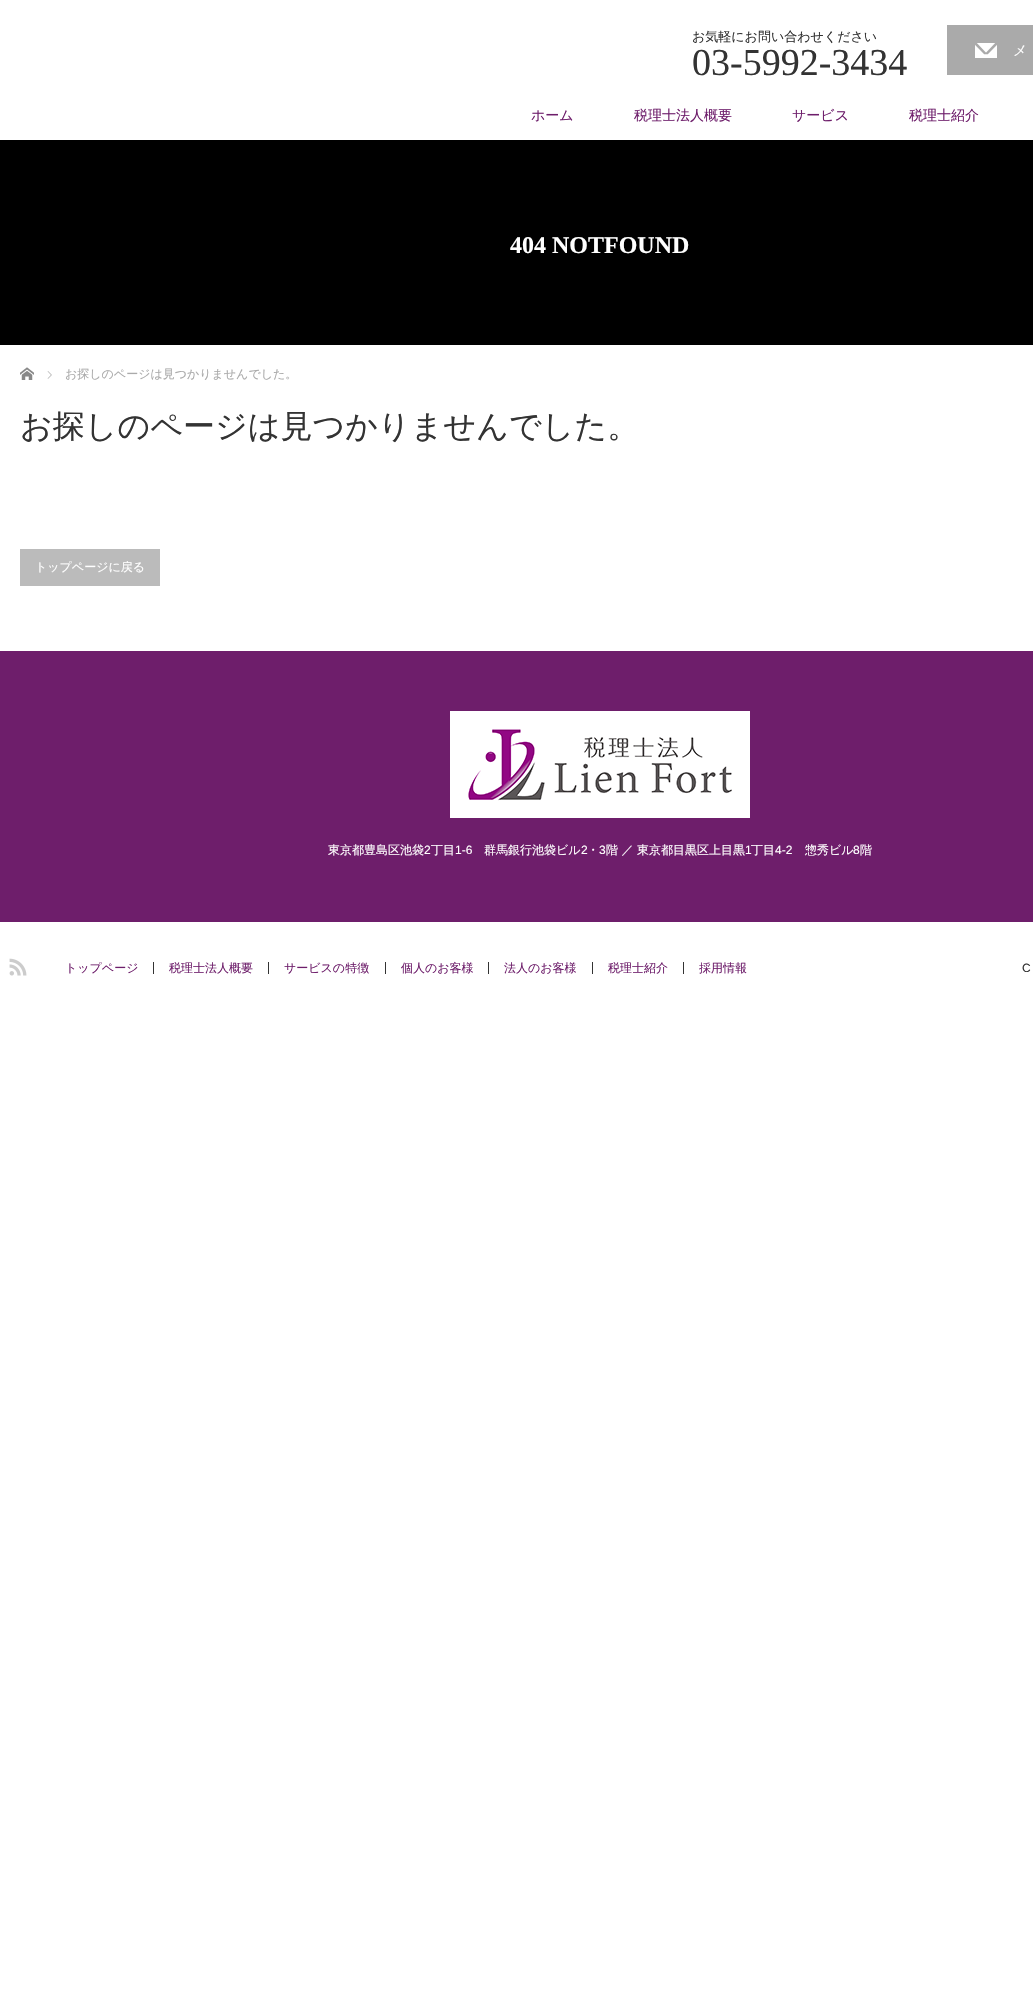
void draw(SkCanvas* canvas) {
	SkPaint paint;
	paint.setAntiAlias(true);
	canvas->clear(0xffffffff);
	SkFont f1(fontMgr->matchFamilyStyle("WenQuanYi Zen Hei", SkFontStyle(500, SkFontStyle::kNormal_Width, SkFontStyle::kUpright_Slant)), 13);
	f1.setSubpixel(true);
	paint.setColor(0xff333333);
	canvas->drawString("お気軽にお問い合わせください", 692, 41, f1, paint);
	SkFont f2(fontMgr->matchFamilyStyle("Liberation Serif", SkFontStyle::Normal()), 38);
	f2.setSubpixel(true);
	canvas->drawString("03-5992-3434", 692, 75, f2, paint);
	paint.setColor(0xffaaaaaa);
	canvas->drawRect(SkRect::MakeXYWH(947, 25, 86, 50), paint);
	canvas->drawImageRect(SkImages::DeferredFromEncodedData(SkData::MakeFromFileName("img1.png")), SkRect::MakeXYWH(975, 43, 22, 15), SkSamplingOptions());
	SkFont f3(fontMgr->matchFamilyStyle("WenQuanYi Zen Hei", SkFontStyle(500, SkFontStyle::kNormal_Width, SkFontStyle::kUpright_Slant)), 14);
	f3.setSubpixel(true);
	paint.setColor(0xffffffff);
	canvas->drawString("メ", 1013, 55, f3, paint);
	paint.setColor(0xff6e1e6b);
	canvas->drawString("ホーム", 531, 120, f3, paint);
	canvas->drawString("税理士法人概要", 634, 120, f3, paint);
	canvas->drawString("サービス", 792, 120, f3, paint);
	canvas->drawString("税理士紹介", 909, 120, f3, paint);
	paint.setColor(0xff000000);
	canvas->drawRect(SkRect::MakeXYWH(0, 140, 1033, 205), paint);
	SkFont f4(fontMgr->matchFamilyStyle("Liberation Serif", SkFontStyle::Bold()), 24);
	f4.setSubpixel(true);
	paint.setColor(0xffffffff);
	canvas->drawString("404 NOTFOUND", 510, 253, f4, paint);
	canvas->drawImageRect(SkImages::DeferredFromEncodedData(SkData::MakeFromFileName("img2.png")), SkRect::MakeXYWH(20, 367, 14, 13), SkSamplingOptions());
	canvas->drawImageRect(SkImages::DeferredFromEncodedData(SkData::MakeFromFileName("img3.png")), SkRect::MakeXYWH(47, 371, 5, 8), SkSamplingOptions());
	SkFont f5(fontMgr->matchFamilyStyle("WenQuanYi Zen Hei", SkFontStyle(500, SkFontStyle::kNormal_Width, SkFontStyle::kUpright_Slant)), 12);
	f5.setSubpixel(true);
	paint.setColor(0xffaaaaaa);
	canvas->drawString("お探しのページは見つかりませんでした。", 65, 378, f5, paint);
	SkFont f6(fontMgr->matchFamilyStyle("WenQuanYi Zen Hei", SkFontStyle(500, SkFontStyle::kNormal_Width, SkFontStyle::kUpright_Slant)), 32);
	f6.setSubpixel(true);
	paint.setColor(0xff333333);
	canvas->drawString("お探しのページは見つかりませんでした。", 20, 437, f6, paint);
	paint.setColor(0xffbbbbbb);
	canvas->drawRect(SkRect::MakeXYWH(20, 549, 140, 37), paint);
	paint.setColor(0xffffffff);
	canvas->drawString("トップページに戻る", 35, 571, f5, paint);
	paint.setColor(0xff6e1e6b);
	canvas->drawRect(SkRect::MakeXYWH(0, 651, 1033, 271), paint);
	canvas->drawImageRect(SkImages::DeferredFromEncodedData(SkData::MakeFromFileName("img4.png")), SkRect::MakeXYWH(450, 711, 300, 107), SkSamplingOptions());
	paint.setColor(0xffffffff);
	canvas->drawString("東京都豊島区池袋", 328, 854, f5, paint);
	SkFont f7(fontMgr->matchFamilyStyle("Liberation Sans", SkFontStyle::Normal()), 12);
	f7.setSubpixel(true);
	canvas->drawString("2", 424, 854, f7, paint);
	canvas->drawString("丁目", 431, 854, f5, paint);
	canvas->drawString("1-6", 455, 854, f7, paint);
	canvas->drawString("群馬銀行池袋ビル", 484, 854, f5, paint);
	canvas->drawString("2", 581, 854, f7, paint);
	canvas->drawString("・", 587, 854, f5, paint);
	canvas->drawString("3", 599, 854, f7, paint);
	canvas->drawString("階 ／", 606, 854, f5, paint);
	canvas->drawString("東京都目黒区上目黒", 637, 854, f5, paint);
	canvas->drawString("1", 745, 854, f7, paint);
	canvas->drawString("丁目", 751, 854, f5, paint);
	canvas->drawString("4-2", 775, 854, f7, paint);
	canvas->drawString("惣秀ビル", 805, 854, f5, paint);
	canvas->drawString("8", 853, 854, f7, paint);
	canvas->drawString("階", 860, 854, f5, paint);
	canvas->drawImageRect(SkImages::DeferredFromEncodedData(SkData::MakeFromFileName("img5.png")), SkRect::MakeXYWH(9, 958, 18, 18), SkSamplingOptions());
	paint.setColor(0xff333333);
	canvas->drawRect(SkRect::MakeXYWH(153, 962, 1, 12), paint);
	paint.setColor(0xff6e1e6b);
	canvas->drawString("トップページ", 65, 972, f5, paint);
	paint.setColor(0xff333333);
	canvas->drawRect(SkRect::MakeXYWH(268, 962, 1, 12), paint);
	paint.setColor(0xff6e1e6b);
	canvas->drawString("税理士法人概要", 169, 972, f5, paint);
	paint.setColor(0xff333333);
	canvas->drawRect(SkRect::MakeXYWH(385, 962, 1, 12), paint);
	paint.setColor(0xff6e1e6b);
	canvas->drawString("サービスの特徴", 284, 972, f5, paint);
	paint.setColor(0xff333333);
	canvas->drawRect(SkRect::MakeXYWH(488, 962, 1, 12), paint);
	paint.setColor(0xff6e1e6b);
	canvas->drawString("個人のお客様", 401, 972, f5, paint);
	paint.setColor(0xff333333);
	canvas->drawRect(SkRect::MakeXYWH(592, 962, 1, 12), paint);
	paint.setColor(0xff6e1e6b);
	canvas->drawString("法人のお客様", 504, 972, f5, paint);
	paint.setColor(0xff333333);
	canvas->drawRect(SkRect::MakeXYWH(683, 962, 1, 12), paint);
	paint.setColor(0xff6e1e6b);
	canvas->drawString("税理士紹介", 608, 972, f5, paint);
	canvas->drawString("採用情報", 699, 972, f5, paint);
	paint.setColor(0xff333333);
	canvas->drawString("C", 1022, 972, f7, paint);
}
